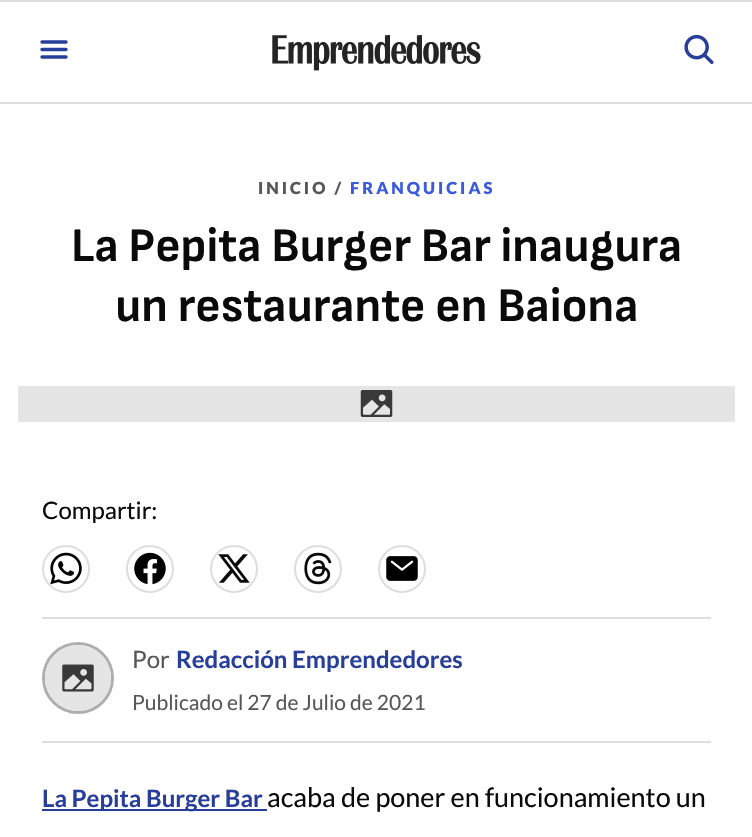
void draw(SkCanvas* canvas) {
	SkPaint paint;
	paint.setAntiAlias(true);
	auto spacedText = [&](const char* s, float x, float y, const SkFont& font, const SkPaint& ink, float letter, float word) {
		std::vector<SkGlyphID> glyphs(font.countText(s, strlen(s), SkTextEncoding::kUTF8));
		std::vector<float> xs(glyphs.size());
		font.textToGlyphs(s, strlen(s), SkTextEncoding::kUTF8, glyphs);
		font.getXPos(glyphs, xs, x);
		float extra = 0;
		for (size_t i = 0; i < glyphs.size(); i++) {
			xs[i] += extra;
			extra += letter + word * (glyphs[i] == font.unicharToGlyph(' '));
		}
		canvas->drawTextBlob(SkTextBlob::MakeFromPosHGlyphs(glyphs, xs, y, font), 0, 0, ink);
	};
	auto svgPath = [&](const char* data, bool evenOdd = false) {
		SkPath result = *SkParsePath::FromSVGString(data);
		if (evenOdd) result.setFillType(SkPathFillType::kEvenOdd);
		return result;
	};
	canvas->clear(0xffffffff);
	paint.setColor(0xffdedede);
	canvas->drawRect(SkRect::MakeXYWH(0, 0, 752, 2), paint);
	canvas->drawRect(SkRect::MakeXYWH(0, 102, 752, 2), paint);
	paint.setStroke(true);
	paint.setStrokeWidth(3.4);
	paint.setStrokeCap(SkPaint::kRound_Cap);
	paint.setColor(0xff273e9a);
	canvas->drawPath(svgPath("M42 42H66M42 49.5H66M42 57H66"), paint);
	canvas->drawImageRect(SkImages::DeferredFromEncodedData(SkData::MakeFromFileName("img1.png")), SkRect::MakeXYWH(684, 34, 30, 30), SkSamplingOptions());
	canvas->drawImageRect(SkImages::DeferredFromEncodedData(SkData::MakeFromFileName("img2.png")), SkRect::MakeXYWH(272, 35, 209, 36), SkSamplingOptions());
	SkFont f1(fontMgr->matchFamilyStyle("Lato", SkFontStyle(900, SkFontStyle::kNormal_Width, SkFontStyle::kUpright_Slant)), 16.5);
	f1.setSubpixel(true);
	paint.setStroke(false);
	paint.setColor(0xff575757);
	spacedText("INICIO /", 258, 194, f1, paint, 3, 0);
	paint.setColor(0xff3b5bdb);
	spacedText("FRANQUICIAS", 350, 194, f1, paint, 3, 0);
	SkFont f2(fontMgr->matchFamilyStyle("Sofia Sans", SkFontStyle::Bold()), 48);
	f2.setSubpixel(true);
	paint.setColor(0xff0a0a0a);
	canvas->drawString("La Pepita Burger Bar inaugura", 71, 261, f2, paint);
	canvas->drawString("un restaurante en Baiona", 115, 321, f2, paint);
	paint.setColor(0xffe5e5e5);
	canvas->drawRect(SkRect::MakeXYWH(18, 386, 717, 36), paint);
	canvas->drawImageRect(SkImages::DeferredFromEncodedData(SkData::MakeFromFileName("img3.png")), SkRect::MakeXYWH(360, 390, 33, 27), SkSamplingOptions());
	SkFont f3(fontMgr->matchFamilyStyle("Lato", SkFontStyle::Normal()), 24);
	f3.setSubpixel(true);
	paint.setColor(0xff0a0a0a);
	canvas->drawString("Compartir:", 42, 519, f3, paint);
	paint.setStroke(true);
	paint.setStrokeWidth(2);
	paint.setStrokeCap(SkPaint::kButt_Cap);
	paint.setColor(0xffdedede);
	canvas->drawCircle(66, 569, 23, paint);
	canvas->drawImageRect(SkImages::DeferredFromEncodedData(SkData::MakeFromFileName("img4.png")), SkRect::MakeXYWH(50, 552, 32, 33), SkSamplingOptions());
	canvas->drawCircle(150, 569, 23, paint);
	canvas->drawImageRect(SkImages::DeferredFromEncodedData(SkData::MakeFromFileName("img5.png")), SkRect::MakeXYWH(134, 552, 32, 33), SkSamplingOptions());
	canvas->drawCircle(234, 569, 23, paint);
	canvas->drawImageRect(SkImages::DeferredFromEncodedData(SkData::MakeFromFileName("img6.png")), SkRect::MakeXYWH(218, 554, 32, 29), SkSamplingOptions());
	canvas->drawCircle(318, 569, 23, paint);
	canvas->drawImageRect(SkImages::DeferredFromEncodedData(SkData::MakeFromFileName("img7.png")), SkRect::MakeXYWH(304, 552, 28, 33), SkSamplingOptions());
	canvas->drawCircle(402, 569, 23, paint);
	canvas->drawImageRect(SkImages::DeferredFromEncodedData(SkData::MakeFromFileName("img8.png")), SkRect::MakeXYWH(386, 556, 32, 25), SkSamplingOptions());
	paint.setStroke(false);
	canvas->drawRect(SkRect::MakeXYWH(42, 617, 669, 2), paint);
	canvas->drawRect(SkRect::MakeXYWH(42, 741, 669, 2), paint);
	paint.setStroke(true);
	paint.setStrokeWidth(3);
	paint.setColor(0xffaeaeae);
	canvas->drawCircle(78, 678, 34.5, paint);
	paint.setStroke(false);
	paint.setColor(0xffe5e5e5);
	canvas->drawCircle(78, 678, 33, paint);
	canvas->drawImageRect(SkImages::DeferredFromEncodedData(SkData::MakeFromFileName("img9.png")), SkRect::MakeXYWH(62, 664, 32, 28), SkSamplingOptions());
	paint.setColor(0xff575757);
	canvas->drawString("Por", 132, 668, f3, paint);
	SkFont f4(fontMgr->matchFamilyStyle("Lato", SkFontStyle::Bold()), 24);
	f4.setSubpixel(true);
	paint.setColor(0xff273e9a);
	canvas->drawString("Redacción Emprendedores", 176, 668, f4, paint);
	SkFont f5(fontMgr->matchFamilyStyle("Lato", SkFontStyle::Normal()), 21);
	f5.setSubpixel(true);
	paint.setColor(0xff575757);
	canvas->drawString("Publicado el 27 de Julio de 2021", 132, 710, f5, paint);
	paint.setColor(0xff273e9a);
	canvas->drawRect(SkRect::MakeXYWH(42, 809, 225, 2), paint);
	canvas->drawString("La Pepita Burger Bar", 42, 807, f4, paint);
	SkFont f6(fontMgr->matchFamilyStyle("Lato", SkFontStyle::Normal()), 27);
	f6.setSubpixel(true);
	paint.setColor(0xff0a0a0a);
	canvas->drawString("acaba de poner en funcionamiento un", 267, 807, f6, paint);
}
